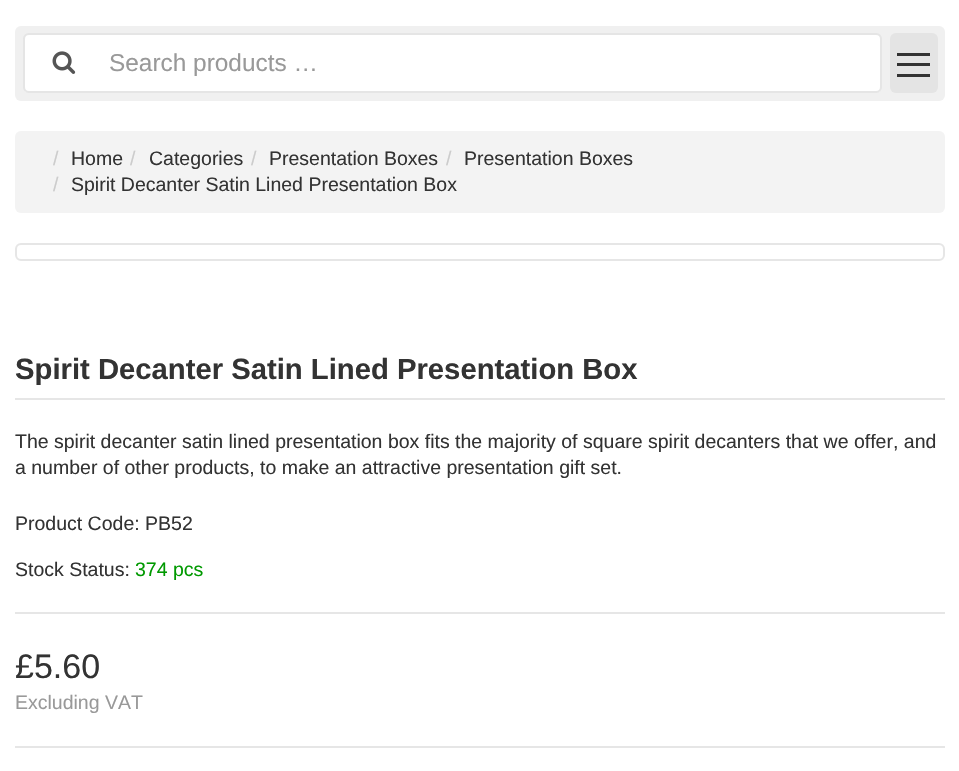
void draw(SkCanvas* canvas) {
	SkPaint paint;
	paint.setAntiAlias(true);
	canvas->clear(0xffffffff);
	paint.setColor(0xfff0f0f0);
	canvas->drawRoundRect(SkRect::MakeXYWH(15, 26, 930, 75), 6, 6, paint);
	paint.setColor(0xffffffff);
	canvas->drawRoundRect(SkRect::MakeXYWH(23, 33, 859, 60), 6, 6, paint);
	paint.setStroke(true);
	paint.setStrokeWidth(2);
	paint.setColor(0x1a000000);
	canvas->drawRoundRect(SkRect::MakeXYWH(24, 34, 857, 58), 5, 5, paint);
	canvas->drawImageRect(SkImages::DeferredFromEncodedData(SkData::MakeFromFileName("img1.png")), SkRect::MakeXYWH(52, 51, 24, 23), SkSamplingOptions());
	SkFont f1(fontMgr->matchFamilyStyle("Liberation Sans", SkFontStyle::Normal()), 24.4);
	f1.setSubpixel(true);
	paint.setStroke(false);
	paint.setColor(0xff999999);
	canvas->drawString("Search products …", 109, 71, f1, paint);
	paint.setColor(0xffe4e4e4);
	canvas->drawRoundRect(SkRect::MakeXYWH(890, 33, 48, 60), 6, 6, paint);
	paint.setColor(0xff333333);
	canvas->drawRect(SkRect::MakeXYWH(897, 53, 33, 3), paint);
	canvas->drawRect(SkRect::MakeXYWH(897, 63, 33, 3), paint);
	canvas->drawRect(SkRect::MakeXYWH(897, 74, 33, 3), paint);
	paint.setColor(0xfff3f3f3);
	canvas->drawRoundRect(SkRect::MakeXYWH(15, 131, 930, 82), 6, 6, paint);
	SkFont f2(fontMgr->matchFamilyStyle("Liberation Sans", SkFontStyle::Normal()), 19.5);
	f2.setSubpixel(true);
	paint.setColor(0xffcccccc);
	canvas->drawString("/", 53, 165, f2, paint);
	paint.setColor(0xff333333);
	canvas->drawString("Home", 71, 165, f2, paint);
	paint.setColor(0xffcccccc);
	canvas->drawString("/", 130, 165, f2, paint);
	paint.setColor(0xff333333);
	canvas->drawString("Categories", 149, 165, f2, paint);
	paint.setColor(0xffcccccc);
	canvas->drawString("/", 251, 165, f2, paint);
	paint.setColor(0xff333333);
	canvas->drawString("Presentation Boxes", 269, 165, f2, paint);
	paint.setColor(0xffcccccc);
	canvas->drawString("/", 446, 165, f2, paint);
	paint.setColor(0xff333333);
	canvas->drawString("Presentation Boxes", 464, 165, f2, paint);
	paint.setColor(0xffcccccc);
	canvas->drawString("/", 53, 191, f2, paint);
	paint.setColor(0xff333333);
	canvas->drawString("Spirit Decanter Satin Lined Presentation Box", 71, 191, f2, paint);
	paint.setStroke(true);
	paint.setColor(0xffe6e6e6);
	canvas->drawRoundRect(SkRect::MakeXYWH(16, 244, 928, 16), 5, 5, paint);
	paint.setStroke(false);
	canvas->drawRect(SkRect::MakeXYWH(15, 398, 930, 2), paint);
	SkFont f3(fontMgr->matchFamilyStyle("Liberation Sans", SkFontStyle::Bold()), 29.25);
	f3.setSubpixel(true);
	paint.setColor(0xff333333);
	canvas->drawString("Spirit Decanter Satin Lined Presentation Box", 15, 379, f3, paint);
	canvas->drawString("The spirit decanter satin lined presentation box fits the majority of square spirit decanters that we offer, and", 15, 448, f2, paint);
	canvas->drawString("a number of other products, to make an attractive presentation gift set.", 15, 474, f2, paint);
	canvas->drawString("Product Code: PB52", 15, 530, f2, paint);
	canvas->drawString("Stock Status:", 15, 576, f2, paint);
	paint.setColor(0xff009900);
	canvas->drawString("374 pcs", 135, 576, f2, paint);
	paint.setColor(0xffe6e6e6);
	canvas->drawRect(SkRect::MakeXYWH(15, 612, 930, 2), paint);
	SkFont f4(fontMgr->matchFamilyStyle("Liberation Sans", SkFontStyle::Normal()), 34);
	f4.setSubpixel(true);
	paint.setColor(0xff333333);
	canvas->drawString("£5.60", 15, 678, f4, paint);
	paint.setColor(0xff999999);
	canvas->drawString("Excluding VAT", 15, 709, f2, paint);
	paint.setColor(0xffe6e6e6);
	canvas->drawRect(SkRect::MakeXYWH(15, 746, 930, 2), paint);
}
